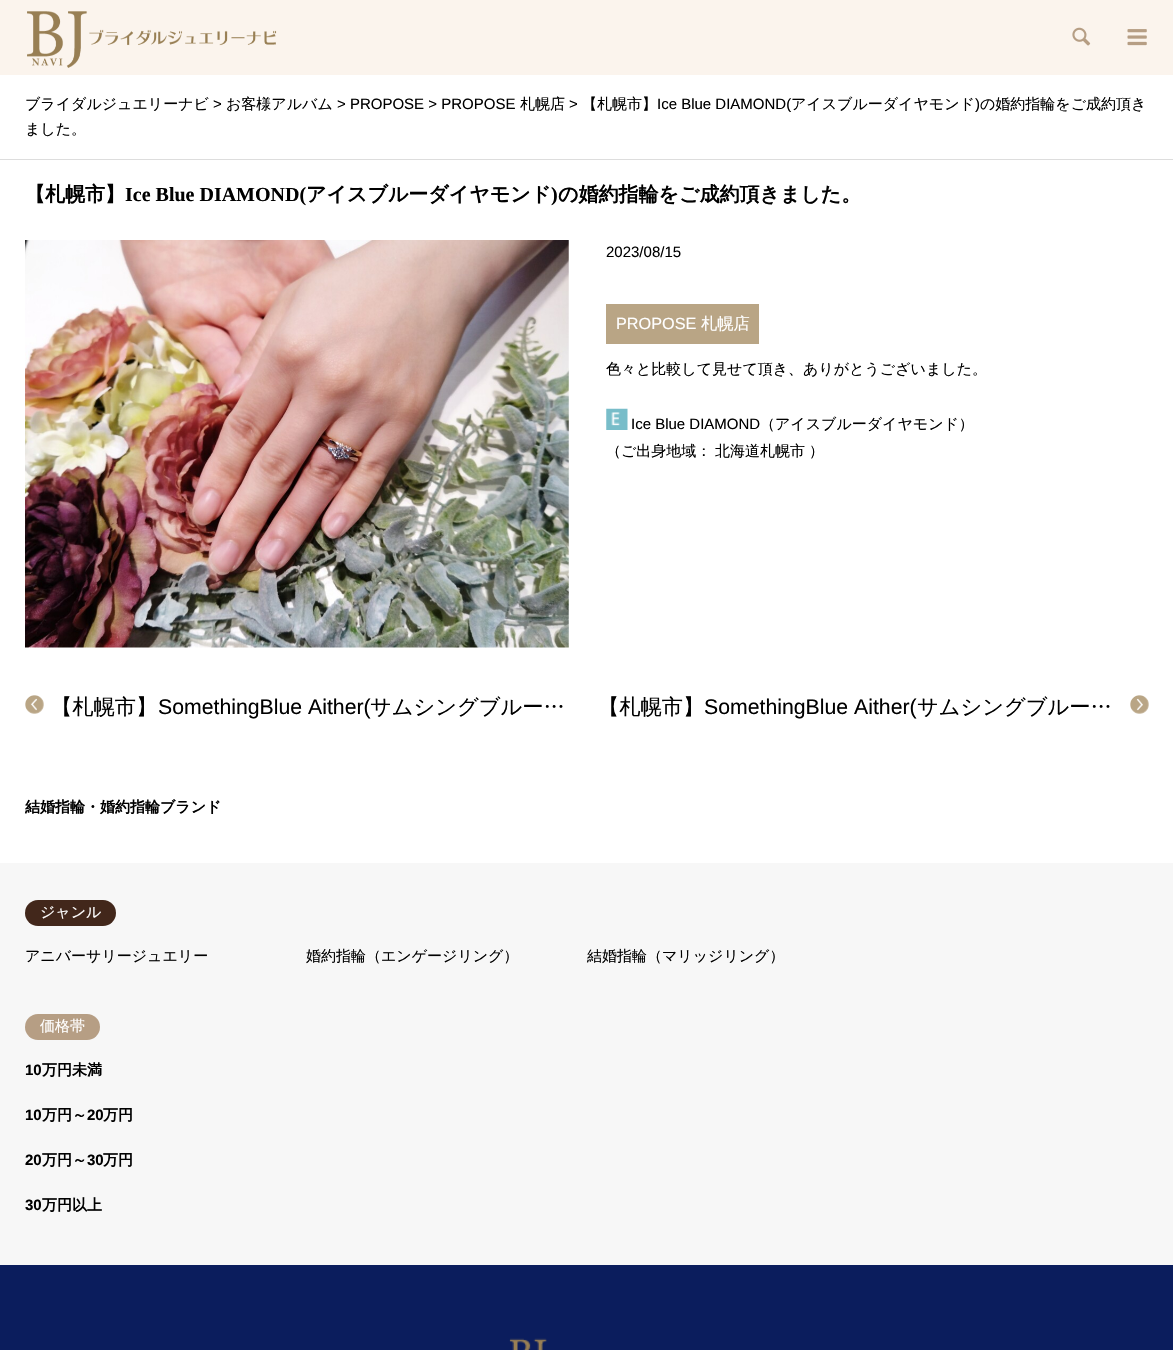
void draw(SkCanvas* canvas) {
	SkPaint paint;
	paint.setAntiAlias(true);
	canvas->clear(0xffffffff);
	paint.setColor(0xfffbf4ed);
	canvas->drawRect(SkRect::MakeXYWH(0, 0, 1173, 75), paint);
	canvas->drawImageRect(SkImages::DeferredFromEncodedData(SkData::MakeFromFileName("img1.png")), SkRect::MakeXYWH(27, 11, 250, 57), SkSamplingOptions());
	canvas->drawImageRect(SkImages::DeferredFromEncodedData(SkData::MakeFromFileName("img2.png")), SkRect::MakeXYWH(1072, 27, 19, 19), SkSamplingOptions());
	canvas->drawImageRect(SkImages::DeferredFromEncodedData(SkData::MakeFromFileName("img3.png")), SkRect::MakeXYWH(1127, 29, 20, 17), SkSamplingOptions());
	paint.setColor(0xffdddddd);
	canvas->drawRect(SkRect::MakeXYWH(0, 159, 1173, 1), paint);
	SkFont f1(fontMgr->matchFamilyStyle("WenQuanYi Zen Hei", SkFontStyle(500, SkFontStyle::kNormal_Width, SkFontStyle::kUpright_Slant)), 15);
	f1.setSubpixel(true);
	paint.setColor(0xff000000);
	canvas->drawString("ブライダルジュエリーナビ", 25, 109, f1, paint);
	SkFont f2(fontMgr->matchFamilyStyle("Liberation Sans", SkFontStyle::Normal()), 15);
	f2.setSubpixel(true);
	canvas->drawString(">", 213, 109, f2, paint);
	canvas->drawString("お客様アルバム", 226, 109, f1, paint);
	canvas->drawString("> PROPOSE > PROPOSE", 337, 109, f2, paint);
	canvas->drawString("札幌店", 520, 109, f1, paint);
	canvas->drawString(">", 569, 109, f2, paint);
	canvas->drawString("【札幌市】", 582, 109, f1, paint);
	canvas->drawString("Ice Blue DIAMOND(", 657, 109, f2, paint);
	canvas->drawString("アイスブルーダイヤモンド", 791, 109, f1, paint);
	canvas->drawString(")", 975, 109, f2, paint);
	canvas->drawString("の婚約指輪をご成約頂き", 980, 109, f1, paint);
	canvas->drawString("ました。", 25, 134, f1, paint);
	SkFont f3(fontMgr->matchFamilyStyle("WenQuanYi Zen Hei", SkFontStyle::Bold()), 20);
	f3.setSubpixel(true);
	canvas->drawString("【札幌市】", 25, 201, f3, paint);
	SkFont f4(fontMgr->matchFamilyStyle("Liberation Serif", SkFontStyle::Bold()), 20);
	f4.setSubpixel(true);
	canvas->drawString("Ice Blue DIAMOND(", 125, 201, f4, paint);
	canvas->drawString("アイスブルーダイヤモンド", 306, 201, f3, paint);
	canvas->drawString(")", 551, 201, f4, paint);
	canvas->drawString("の婚約指輪をご成約頂きました。", 558, 201, f3, paint);
	canvas->drawImageRect(SkImages::DeferredFromEncodedData(SkData::MakeFromFileName("img4.png")), SkRect::MakeXYWH(25, 240, 544, 408), SkSamplingOptions());
	canvas->drawString("2023/08/15", 606, 257, f2, paint);
	paint.setColor(0xffb9a585);
	canvas->drawRect(SkRect::MakeXYWH(606, 304, 153, 40), paint);
	SkFont f5(fontMgr->matchFamilyStyle("Liberation Sans", SkFontStyle::Normal()), 16.25);
	f5.setSubpixel(true);
	paint.setColor(0xffffffff);
	canvas->drawString("PROPOSE", 616, 329, f5, paint);
	SkFont f6(fontMgr->matchFamilyStyle("WenQuanYi Zen Hei", SkFontStyle(500, SkFontStyle::kNormal_Width, SkFontStyle::kUpright_Slant)), 16.25);
	f6.setSubpixel(true);
	canvas->drawString("札幌店", 701, 329, f6, paint);
	paint.setColor(0xff000000);
	canvas->drawString("色々と比較して見せて頂き、ありがとうございました。", 606, 374, f1, paint);
	canvas->drawImageRect(SkImages::DeferredFromEncodedData(SkData::MakeFromFileName("img5.png")), SkRect::MakeXYWH(606, 408, 22, 22), SkSamplingOptions());
	canvas->drawString("Ice Blue DIAMOND", 631, 429, f2, paint);
	canvas->drawString("（アイスブルーダイヤモンド）", 760, 429, f1, paint);
	canvas->drawString("（ご出身地域：", 606, 456, f1, paint);
	canvas->drawString("北海道札幌市", 715, 456, f1, paint);
	canvas->drawString("）", 809, 456, f1, paint);
	canvas->drawImageRect(SkImages::DeferredFromEncodedData(SkData::MakeFromFileName("img6.png")), SkRect::MakeXYWH(25, 695, 19, 19), SkSamplingOptions());
	SkFont f7(fontMgr->matchFamilyStyle("WenQuanYi Zen Hei", SkFontStyle(500, SkFontStyle::kNormal_Width, SkFontStyle::kUpright_Slant)), 21.25);
	f7.setSubpixel(true);
	canvas->drawString("【札幌市】", 51, 714, f7, paint);
	SkFont f8(fontMgr->matchFamilyStyle("Liberation Sans", SkFontStyle::Normal()), 21.25);
	f8.setSubpixel(true);
	canvas->drawString("SomethingBlue Aither(", 158, 714, f8, paint);
	canvas->drawString("サムシングブルー…", 370, 714, f7, paint);
	canvas->drawImageRect(SkImages::DeferredFromEncodedData(SkData::MakeFromFileName("img7.png")), SkRect::MakeXYWH(1130, 695, 19, 19), SkSamplingOptions());
	canvas->drawString("【札幌市】", 598, 714, f7, paint);
	canvas->drawString("SomethingBlue Aither(", 704, 714, f8, paint);
	canvas->drawString("サムシングブルー…", 917, 714, f7, paint);
	SkFont f9(fontMgr->matchFamilyStyle("WenQuanYi Zen Hei", SkFontStyle::Bold()), 15);
	f9.setSubpixel(true);
	canvas->drawString("結婚指輪・婚約指輪ブランド", 25, 812, f9, paint);
	paint.setColor(0xfff7f7f7);
	canvas->drawRect(SkRect::MakeXYWH(0, 863, 1173, 402), paint);
	paint.setColor(0xff42271b);
	canvas->drawRoundRect(SkRect::MakeXYWH(25, 900, 91, 26), 13, 13, paint);
	paint.setColor(0xffffffff);
	canvas->drawString("ジャンル", 40, 917, f1, paint);
	paint.setColor(0xff000000);
	canvas->drawString("アニバーサリージュエリー", 25, 961, f1, paint);
	canvas->drawString("婚約指輪（エンゲージリング）", 306, 961, f1, paint);
	canvas->drawString("結婚指輪（マリッジリング）", 587, 961, f1, paint);
	paint.setColor(0xffb69e84);
	canvas->drawRoundRect(SkRect::MakeXYWH(25, 1014, 75, 26), 13, 13, paint);
	paint.setColor(0xffffffff);
	canvas->drawString("価格帯", 40, 1031, f1, paint);
	SkFont f10(fontMgr->matchFamilyStyle("Liberation Sans", SkFontStyle::Bold()), 15);
	f10.setSubpixel(true);
	paint.setColor(0xff000000);
	canvas->drawString("10", 25, 1075, f10, paint);
	canvas->drawString("万円未満", 42, 1075, f9, paint);
	canvas->drawString("10", 25, 1120, f10, paint);
	canvas->drawString("万円～", 42, 1120, f9, paint);
	canvas->drawString("20", 87, 1120, f10, paint);
	canvas->drawString("万円", 103, 1120, f9, paint);
	canvas->drawString("20", 25, 1165, f10, paint);
	canvas->drawString("万円～", 42, 1165, f9, paint);
	canvas->drawString("30", 87, 1165, f10, paint);
	canvas->drawString("万円", 103, 1165, f9, paint);
	canvas->drawString("30", 25, 1210, f10, paint);
	canvas->drawString("万円以上", 42, 1210, f9, paint);
	paint.setColor(0xff0b1d5d);
	canvas->drawRect(SkRect::MakeXYWH(0, 1265, 1173, 85), paint);
	canvas->drawImageRect(SkImages::DeferredFromEncodedData(SkData::MakeFromFileName("img8.png")), SkRect::MakeXYWH(509, 1338, 38, 12), SkSamplingOptions());
}
